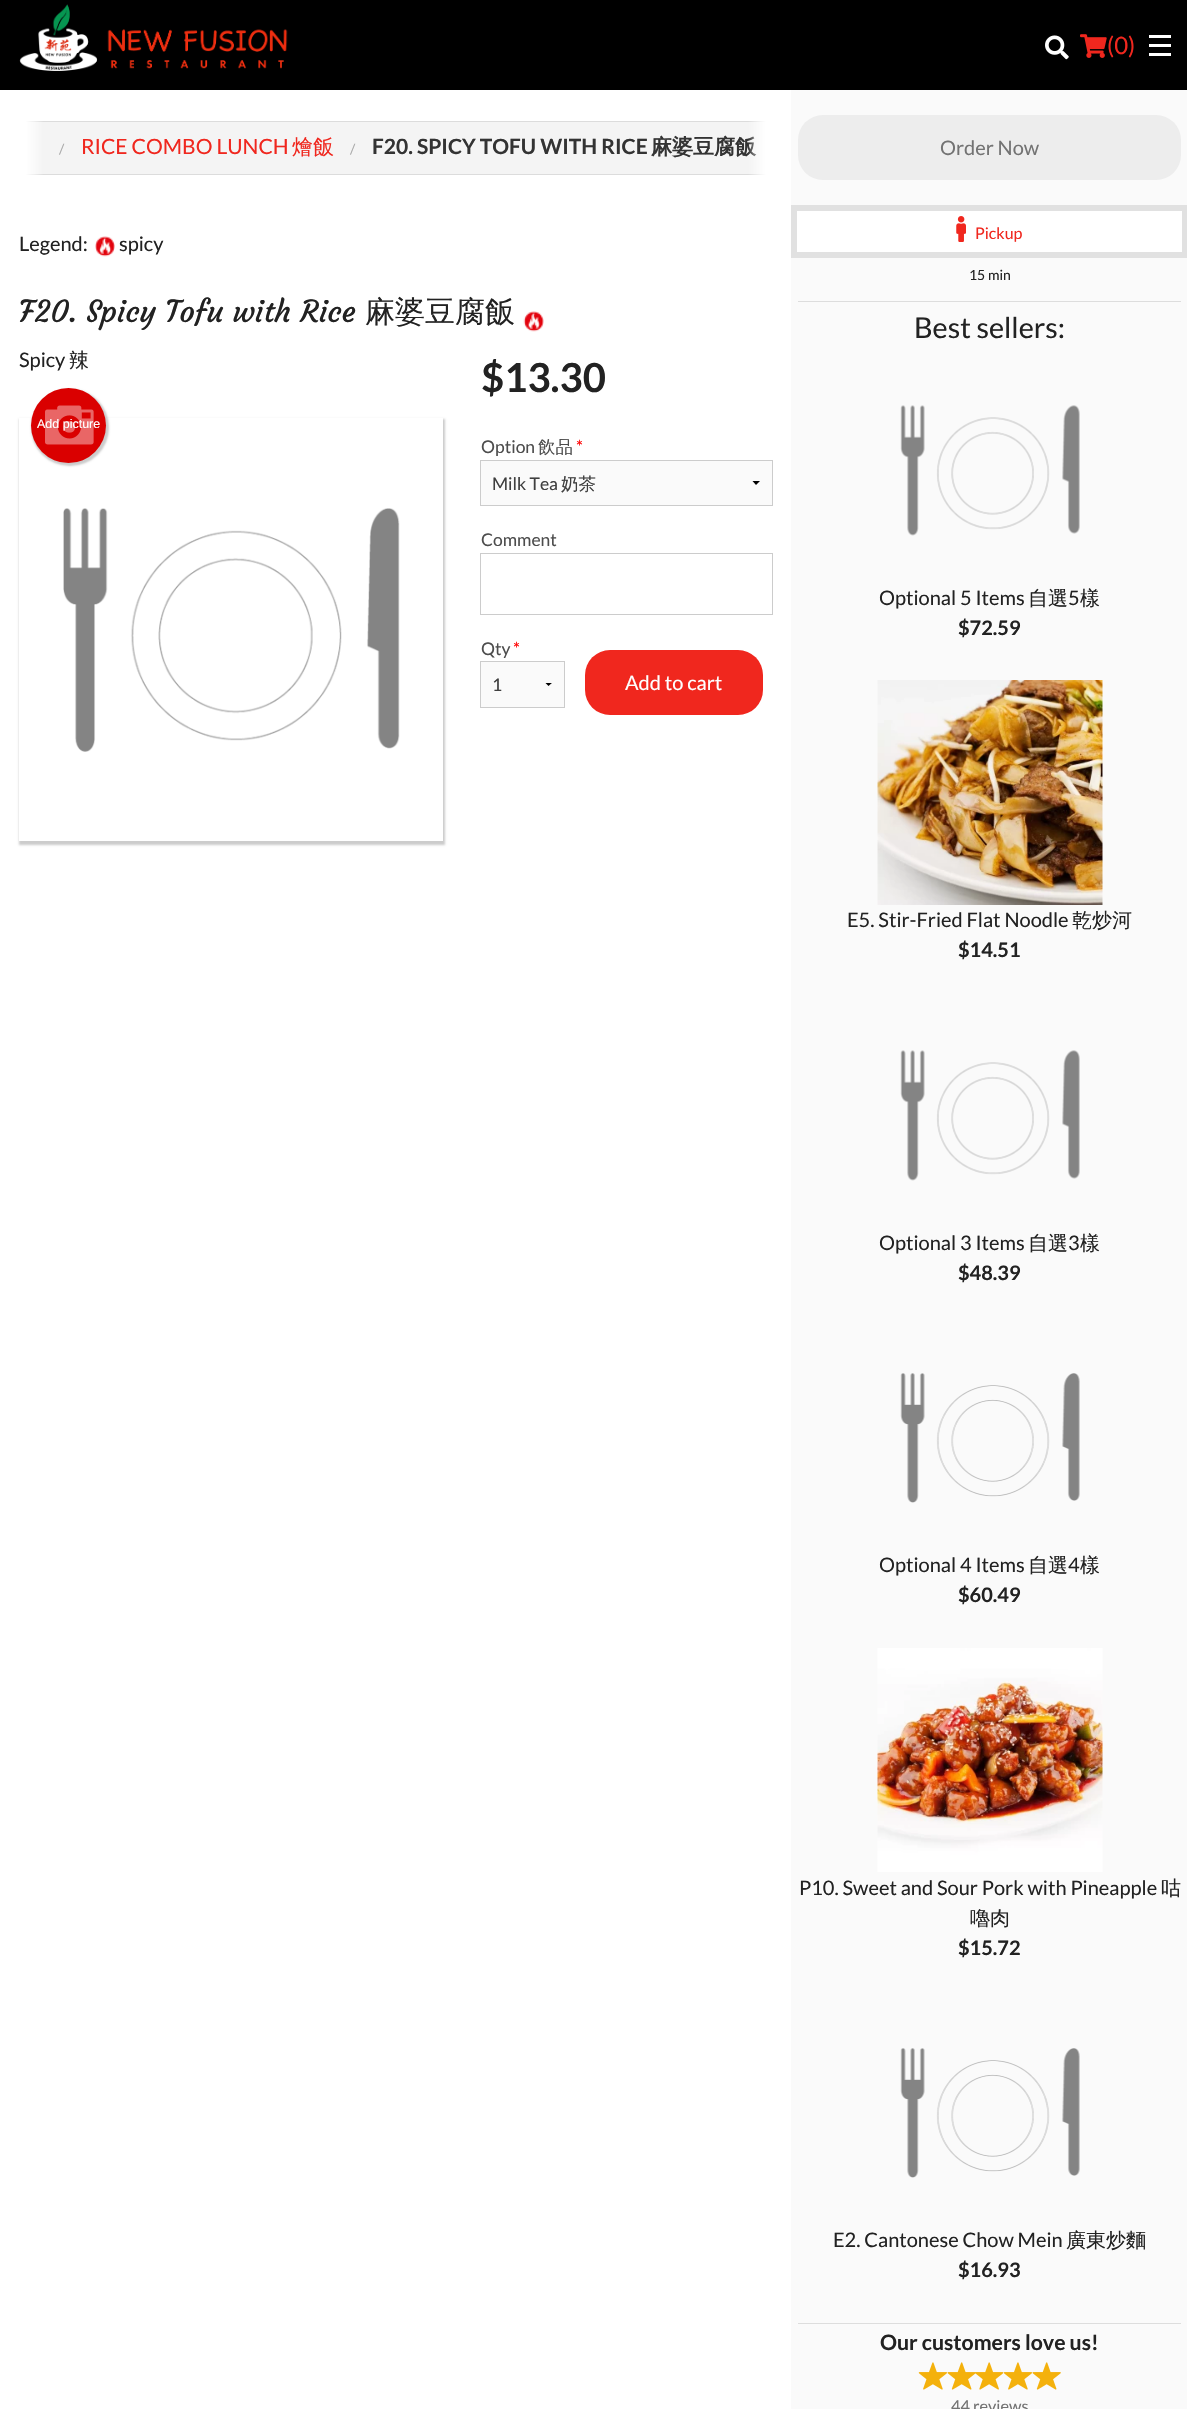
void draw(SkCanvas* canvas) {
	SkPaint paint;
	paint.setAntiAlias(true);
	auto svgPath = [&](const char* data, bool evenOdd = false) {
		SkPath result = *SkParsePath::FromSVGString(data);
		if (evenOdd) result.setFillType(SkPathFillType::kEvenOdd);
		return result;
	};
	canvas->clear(0xffffffff);
	paint.setColor(0xff000000);
	canvas->drawRect(SkRect::MakeXYWH(0, 0, 1187, 90), paint);
	canvas->drawImageRect(SkImages::DeferredFromEncodedData(SkData::MakeFromFileName("img1.png")), SkRect::MakeXYWH(19, 4, 269, 67), SkSamplingOptions());
	canvas->drawImageRect(SkImages::DeferredFromEncodedData(SkData::MakeFromFileName("img2.png")), SkRect::MakeXYWH(1045, 35, 24, 25), SkSamplingOptions());
	canvas->drawImageRect(SkImages::DeferredFromEncodedData(SkData::MakeFromFileName("img3.png")), SkRect::MakeXYWH(1080, 34, 27, 24), SkSamplingOptions());
	SkFont f1(fontMgr->matchFamilyStyle("Lato", SkFontStyle::Normal()), 24);
	f1.setSubpixel(true);
	paint.setColor(0xfff0271e);
	canvas->drawString("(0)", 1107, 54, f1, paint);
	paint.setColor(0xffffffff);
	canvas->drawRect(SkRect::MakeXYWH(1149, 53, 22, 3), paint);
	canvas->drawRect(SkRect::MakeXYWH(1149, 44, 22, 3), paint);
	canvas->drawRect(SkRect::MakeXYWH(1149, 35, 22, 3), paint);
	paint.setColor(0xfff4f4f4);
	canvas->drawRect(SkRect::MakeXYWH(25, 122, 741, 52), paint);
	paint.setStroke(true);
	paint.setStrokeWidth(1);
	paint.setColor(0xffdcdcdc);
	canvas->drawRect(SkRect::MakeXYWH(19.5, 121.5, 753, 53), paint);
	paint.setStroke(false);
	{
		const SkColor colors[] = {0x00ffffff, 0xffffffff, 0xffffffff};
		const float stops[] = {0, 0.43, 1};
		const SkPoint ends[] = {{44, 140}, {0, 140}};
		paint.setShader(SkGradientShader::MakeLinear(ends, colors, stops, 3, SkTileMode::kClamp));
		paint.setAlpha(255);
	}
	canvas->drawRect(SkRect::MakeXYWH(19, 121, 24, 54), paint);
	SkFont f2(fontMgr->matchFamilyStyle("Lato", SkFontStyle::Normal()), 14);
	f2.setSubpixel(true);
	paint.setShader(nullptr);
	paint.setColor(0xffaaaaaa);
	canvas->drawString("/", 59, 154, f2, paint);
	SkFont f3(fontMgr->matchFamilyStyle("Lato", SkFontStyle::Normal()), 21);
	f3.setSubpixel(true);
	paint.setColor(0xfff0271e);
	canvas->drawString("RICE COMBO LUNCH", 81, 154, f3, paint);
	SkFont f4(fontMgr->matchFamilyStyle("WenQuanYi Zen Hei", SkFontStyle(500, SkFontStyle::kNormal_Width, SkFontStyle::kUpright_Slant)), 21);
	f4.setSubpixel(true);
	canvas->drawString("燴飯", 292, 154, f4, paint);
	paint.setColor(0xffaaaaaa);
	canvas->drawString("/", 350, 154, f2, paint);
	SkFont f5(fontMgr->matchFamilyStyle("Lato", SkFontStyle::Bold()), 21);
	f5.setSubpixel(true);
	paint.setColor(0xff333333);
	canvas->drawString("F20. SPICY TOFU WITH RICE", 372, 154, f5, paint);
	SkFont f6(fontMgr->matchFamilyStyle("WenQuanYi Zen Hei", SkFontStyle::Bold()), 21);
	f6.setSubpixel(true);
	canvas->drawString("麻婆豆腐飯", 651, 154, f6, paint);
	{
		const SkColor colors[] = {0x00ffffff, 0xffffffff, 0xffffffff};
		const float stops[] = {0, 0.43, 1};
		const SkPoint ends[] = {{748, 140}, {791, 140}};
		paint.setShader(SkGradientShader::MakeLinear(ends, colors, stops, 3, SkTileMode::kClamp));
		paint.setAlpha(255);
	}
	canvas->drawRect(SkRect::MakeXYWH(748, 121, 25, 54), paint);
	SkFont f7(fontMgr->matchFamilyStyle("Lato", SkFontStyle::Normal()), 20);
	f7.setSubpixel(true);
	paint.setShader(nullptr);
	paint.setColor(0xff222222);
	canvas->drawString("Legend:", 19, 251, f7, paint);
	canvas->drawImageRect(SkImages::DeferredFromEncodedData(SkData::MakeFromFileName("img4.png")), SkRect::MakeXYWH(95, 236, 20, 21), SkSamplingOptions());
	canvas->drawString("spicy", 119, 251, f7, paint);
	SkFont f8(fontMgr->matchFamilyStyle("Courgette", SkFontStyle::Normal()), 30);
	f8.setSubpixel(true);
	canvas->drawString("F20. Spicy Tofu with Rice", 19, 322, f8, paint);
	SkFont f9(fontMgr->matchFamilyStyle("WenQuanYi Zen Hei", SkFontStyle(500, SkFontStyle::kNormal_Width, SkFontStyle::kUpright_Slant)), 30);
	f9.setSubpixel(true);
	canvas->drawString("麻婆豆腐飯", 365, 322, f9, paint);
	canvas->drawImageRect(SkImages::DeferredFromEncodedData(SkData::MakeFromFileName("img5.png")), SkRect::MakeXYWH(523, 311, 21, 21), SkSamplingOptions());
	canvas->drawString("Spicy", 19, 367, f7, paint);
	SkFont f10(fontMgr->matchFamilyStyle("WenQuanYi Zen Hei", SkFontStyle(500, SkFontStyle::kNormal_Width, SkFontStyle::kUpright_Slant)), 20);
	f10.setSubpixel(true);
	canvas->drawString("辣", 69, 367, f10, paint);
	canvas->save();
	canvas->clipPath(svgPath("M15 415H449V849H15ZM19 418H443V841H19Z", true), true);
	paint.setColor(0x33000000);
	paint.setMaskFilter(SkMaskFilter::MakeBlur(kNormal_SkBlurStyle, 1));
	canvas->drawRect(SkRect::MakeXYWH(19, 419, 426, 426), paint);
	paint.setMaskFilter(nullptr);
	canvas->restore();
	canvas->drawImageRect(SkImages::DeferredFromEncodedData(SkData::MakeFromFileName("img6.png")), SkRect::MakeXYWH(63, 508, 337, 244), SkSamplingOptions());
	paint.setMaskFilter(SkMaskFilter::MakeBlur(kNormal_SkBlurStyle, 1));
	canvas->drawRoundRect(SkRect::MakeXYWH(31, 389, 78, 77), 38.5, 38.5, paint);
	paint.setMaskFilter(nullptr);
	paint.setColor(0xffda0000);
	canvas->drawCircle(68.5, 425.5, 37.5, paint);
	canvas->drawImageRect(SkImages::DeferredFromEncodedData(SkData::MakeFromFileName("img7.png")), SkRect::MakeXYWH(45, 405, 49, 40), SkSamplingOptions());
	SkFont f11(fontMgr->matchFamilyStyle("Liberation Sans", SkFontStyle::Normal()), 12.5);
	f11.setSubpixel(true);
	paint.setColor(0xffffffff);
	canvas->drawString("Add picture", 37, 428, f11, paint);
	SkFont f12(fontMgr->matchFamilyStyle("Lato", SkFontStyle::Bold()), 40);
	f12.setSubpixel(true);
	paint.setColor(0xff222222);
	canvas->drawString("$13.30", 481, 392, f12, paint);
	SkFont f13(fontMgr->matchFamilyStyle("Lato", SkFontStyle::Normal()), 17.5);
	f13.setSubpixel(true);
	paint.setColor(0xff4d4d4d);
	canvas->drawString("Option", 481, 453, f13, paint);
	SkFont f14(fontMgr->matchFamilyStyle("WenQuanYi Zen Hei", SkFontStyle(500, SkFontStyle::kNormal_Width, SkFontStyle::kUpright_Slant)), 17.5);
	f14.setSubpixel(true);
	canvas->drawString("飲品", 538, 453, f14, paint);
	paint.setColor(0xffff0000);
	canvas->drawString("*", 576, 453, f13, paint);
	paint.setColor(0xfffafafa);
	canvas->drawRect(SkRect::MakeXYWH(481, 461, 291, 44), paint);
	paint.setColor(0xff000000);
	canvas->drawPath(svgPath("M760 481L756 485L752.5 481Z"), paint);
	paint.setStroke(true);
	paint.setColor(0xffcccccc);
	canvas->drawRect(SkRect::MakeXYWH(480.5, 460.5, 292, 45), paint);
	paint.setStroke(false);
	paint.setColor(0xff3f3f3f);
	canvas->drawString("Milk Tea", 492, 490, f13, paint);
	canvas->drawString("奶茶", 561, 490, f14, paint);
	paint.setColor(0xff4d4d4d);
	canvas->drawString("Comment", 481, 546, f13, paint);
	paint.setStroke(true);
	paint.setColor(0xffcccccc);
	canvas->drawRect(SkRect::MakeXYWH(480.5, 553.5, 292, 61), paint);
	paint.setStroke(false);
	paint.setColor(0xff4d4d4d);
	canvas->drawString("Qty", 481, 655, f13, paint);
	paint.setColor(0xffff0000);
	canvas->drawString("*", 513, 655, f13, paint);
	paint.setColor(0xfffafafa);
	canvas->drawRect(SkRect::MakeXYWH(481, 662, 83, 45), paint);
	canvas->save();
	canvas->clipRect(SkRect::MakeXYWH(534, 683, 30, 4));
	paint.setColor(0xff000000);
	canvas->drawPath(svgPath("M552.5 682.5L548.5 686L545 682.5Z"), paint);
	canvas->restore();
	paint.setStroke(true);
	paint.setColor(0xffcccccc);
	canvas->drawRect(SkRect::MakeXYWH(480.5, 661.5, 84, 46), paint);
	paint.setStroke(false);
	paint.setColor(0xff3f3f3f);
	canvas->drawString("1", 492, 691, f13, paint);
	paint.setColor(0xfff0271e);
	canvas->drawRoundRect(SkRect::MakeXYWH(585, 650, 178, 65), 25, 25, paint);
	paint.setColor(0xffffffff);
	canvas->drawString("Add to cart", 625, 690, f7, paint);
	paint.setColor(0xfffafafa);
	canvas->drawRect(SkRect::MakeXYWH(791, 90, 396, 2319), paint);
	paint.setColor(0xffededed);
	canvas->drawRoundRect(SkRect::MakeXYWH(798, 115, 383, 65), 25, 25, paint);
	paint.setColor(0xff737373);
	canvas->drawString("Order Now", 940, 155, f7, paint);
	paint.setColor(0xffe1e1e1);
	canvas->drawRect(SkRect::MakeXYWH(791, 205, 396, 53), paint);
	paint.setColor(0xffffffff);
	canvas->drawRect(SkRect::MakeXYWH(797, 211, 385, 41), paint);
	canvas->drawImageRect(SkImages::DeferredFromEncodedData(SkData::MakeFromFileName("img8.png")), SkRect::MakeXYWH(956, 216, 10, 26), SkSamplingOptions());
	SkFont f15(fontMgr->matchFamilyStyle("Lato", SkFontStyle::Normal()), 16);
	f15.setSubpixel(true);
	paint.setColor(0xfff0271e);
	canvas->drawString("Pickup", 975, 239, f15, paint);
	paint.setColor(0xff222222);
	canvas->drawString("15 min", 969, 280, f2, paint);
	paint.setColor(0xffdddddd);
	canvas->drawRect(SkRect::MakeXYWH(798, 301, 383, 1), paint);
	SkFont f16(fontMgr->matchFamilyStyle("Lato", SkFontStyle::Normal()), 28.75);
	f16.setSubpixel(true);
	paint.setColor(0xff222222);
	canvas->drawString("Best sellers:", 914, 338, f16, paint);
	canvas->drawImageRect(SkImages::DeferredFromEncodedData(SkData::MakeFromFileName("img9.png")), SkRect::MakeXYWH(900, 405, 180, 131), SkSamplingOptions());
	canvas->drawString("Optional 5 Items", 879, 605, f7, paint);
	canvas->drawString("自選", 1028, 605, f10, paint);
	canvas->drawString("5", 1068, 605, f7, paint);
	canvas->drawString("樣", 1080, 605, f10, paint);
	SkFont f17(fontMgr->matchFamilyStyle("Lato", SkFontStyle::Bold()), 20);
	f17.setSubpixel(true);
	canvas->drawString("$72.59", 958, 635, f17, paint);
	canvas->drawImageRect(SkImages::DeferredFromEncodedData(SkData::MakeFromFileName("img10.png")), SkRect::MakeXYWH(877, 680, 226, 225), SkSamplingOptions());
	canvas->drawString("E5. Stir-Fried Flat Noodle", 847, 927, f7, paint);
	canvas->drawString("乾炒河", 1072, 927, f10, paint);
	canvas->drawString("$14.51", 958, 957, f17, paint);
	canvas->drawImageRect(SkImages::DeferredFromEncodedData(SkData::MakeFromFileName("img9.png")), SkRect::MakeXYWH(900, 1050, 180, 131), SkSamplingOptions());
	canvas->drawString("Optional 3 Items", 879, 1250, f7, paint);
	canvas->drawString("自選", 1028, 1250, f10, paint);
	canvas->drawString("3", 1068, 1250, f7, paint);
	canvas->drawString("樣", 1080, 1250, f10, paint);
	canvas->drawString("$48.39", 958, 1280, f17, paint);
	canvas->drawImageRect(SkImages::DeferredFromEncodedData(SkData::MakeFromFileName("img11.png")), SkRect::MakeXYWH(900, 1373, 180, 130), SkSamplingOptions());
	canvas->drawString("Optional 4 Items", 879, 1572, f7, paint);
	canvas->drawString("自選", 1028, 1572, f10, paint);
	canvas->drawString("4", 1068, 1572, f7, paint);
	canvas->drawString("樣", 1080, 1572, f10, paint);
	canvas->drawString("$60.49", 958, 1602, f17, paint);
	canvas->drawImageRect(SkImages::DeferredFromEncodedData(SkData::MakeFromFileName("img12.png")), SkRect::MakeXYWH(877, 1648, 226, 224), SkSamplingOptions());
	canvas->drawString("P10. Sweet and Sour Pork with Pineapple", 799, 1895, f7, paint);
	canvas->drawString("咕", 1161, 1895, f10, paint);
	canvas->drawString("嚕肉", 970, 1925, f10, paint);
	canvas->drawString("$15.72", 958, 1955, f17, paint);
	canvas->drawImageRect(SkImages::DeferredFromEncodedData(SkData::MakeFromFileName("img11.png")), SkRect::MakeXYWH(900, 2048, 180, 130), SkSamplingOptions());
	canvas->drawString("E2. Cantonese Chow Mein", 833, 2247, f7, paint);
	canvas->drawString("廣東炒麵", 1066, 2247, f10, paint);
	canvas->drawString("$16.93", 958, 2277, f17, paint);
	paint.setColor(0xffdddddd);
	canvas->drawRect(SkRect::MakeXYWH(798, 2323, 383, 1), paint);
	SkFont f18(fontMgr->matchFamilyStyle("Lato", SkFontStyle::Bold()), 21.25);
	f18.setSubpixel(true);
	paint.setColor(0xff222222);
	canvas->drawString("Our customers love us!", 880, 2350, f18, paint);
	canvas->drawImageRect(SkImages::DeferredFromEncodedData(SkData::MakeFromFileName("img13.png")), SkRect::MakeXYWH(918, 2362, 29, 28), SkSamplingOptions());
	canvas->drawImageRect(SkImages::DeferredFromEncodedData(SkData::MakeFromFileName("img14.png")), SkRect::MakeXYWH(947, 2362, 29, 28), SkSamplingOptions());
	canvas->drawImageRect(SkImages::DeferredFromEncodedData(SkData::MakeFromFileName("img15.png")), SkRect::MakeXYWH(975, 2362, 29, 28), SkSamplingOptions());
	canvas->drawImageRect(SkImages::DeferredFromEncodedData(SkData::MakeFromFileName("img16.png")), SkRect::MakeXYWH(1003, 2362, 29, 28), SkSamplingOptions());
	canvas->drawImageRect(SkImages::DeferredFromEncodedData(SkData::MakeFromFileName("img14.png")), SkRect::MakeXYWH(1032, 2362, 29, 28), SkSamplingOptions());
	SkFont f19(fontMgr->matchFamilyStyle("Lato", SkFontStyle::Normal()), 16.25);
	f19.setSubpixel(true);
	paint.setColor(0xff737373);
	canvas->drawString("44 reviews", 951, 2412, f19, paint);
}
